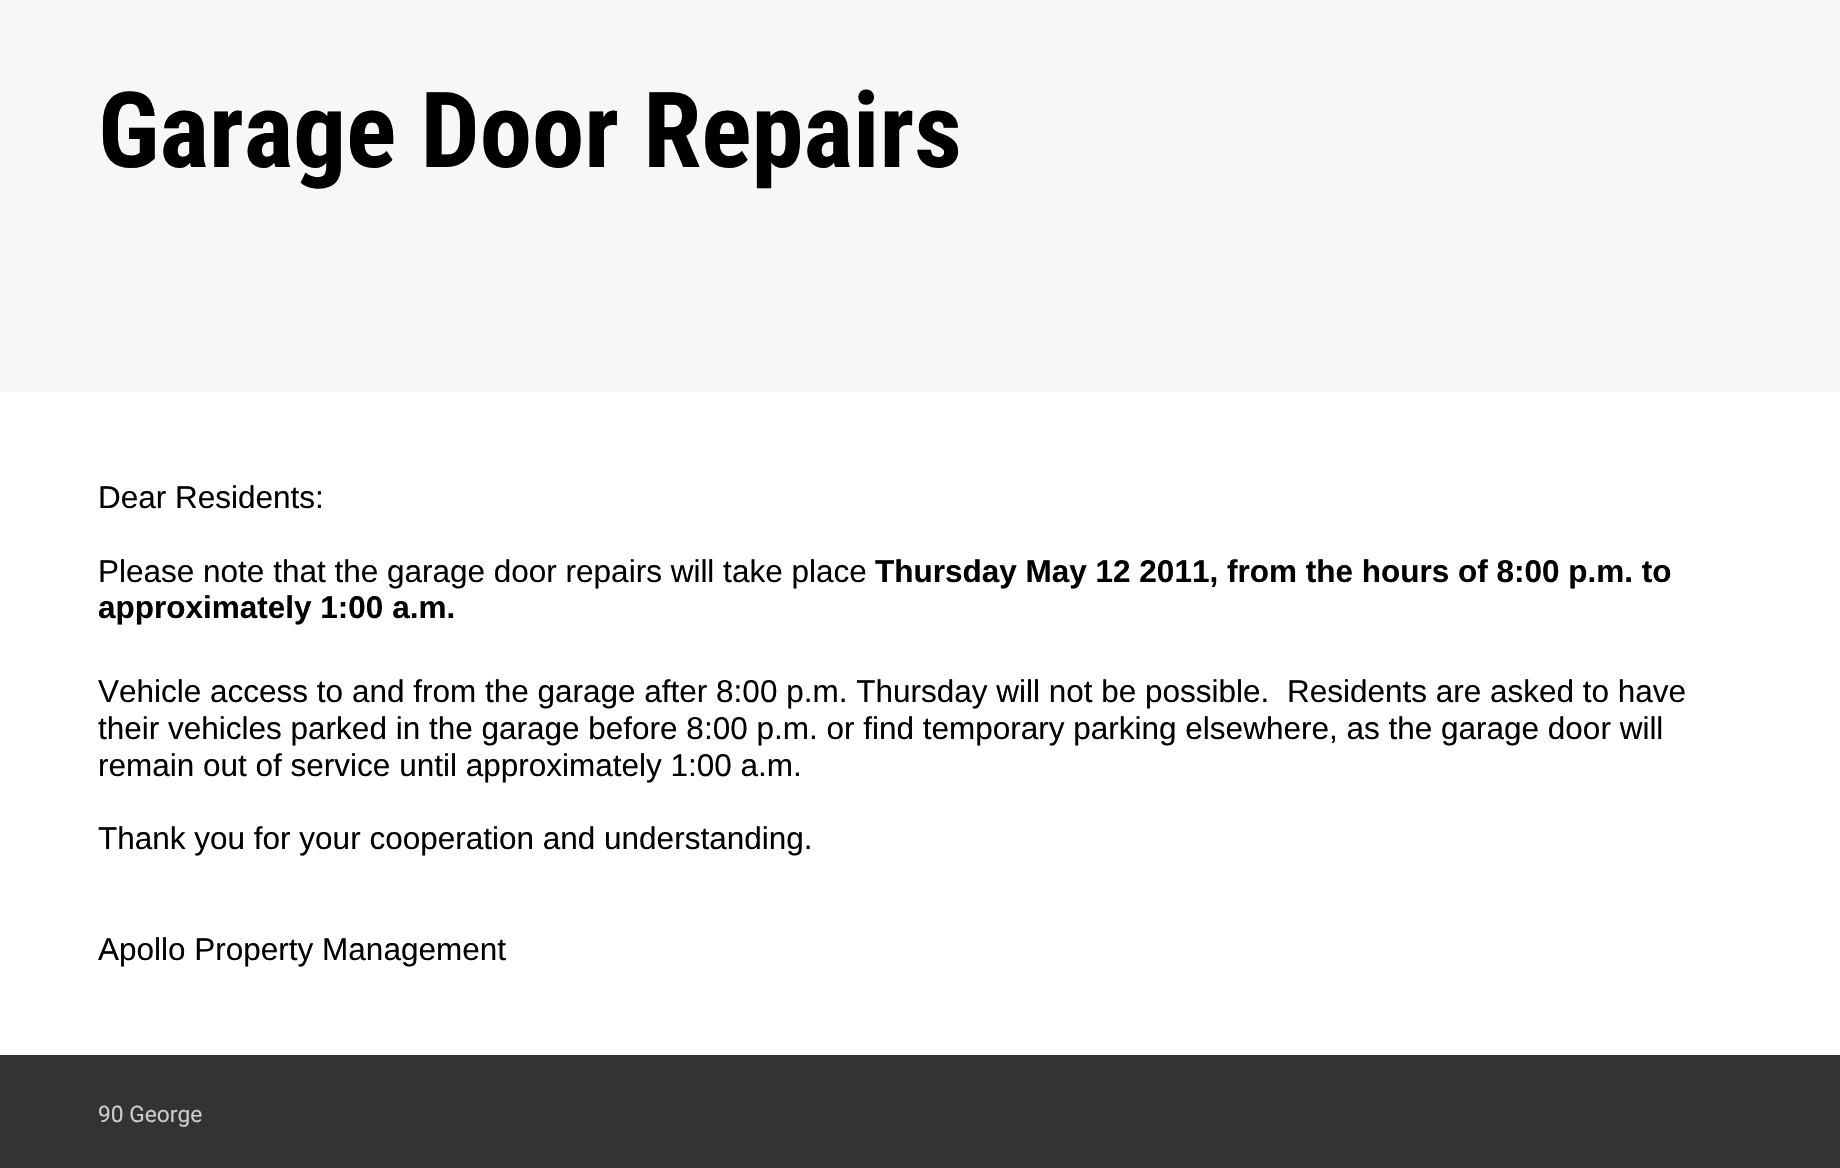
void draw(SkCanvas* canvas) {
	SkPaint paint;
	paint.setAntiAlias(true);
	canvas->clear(0xffffffff);
	paint.setColor(0xfff7f7f7);
	canvas->drawRect(SkRect::MakeXYWH(0, 0, 1840, 392), paint);
	SkFont f1(fontMgr->matchFamilyStyle("Roboto Condensed", SkFontStyle::Bold()), 105);
	f1.setSubpixel(true);
	paint.setColor(0xff000000);
	canvas->drawString("Garage Door Repairs", 98, 167, f1, paint);
	SkFont f2(fontMgr->matchFamilyStyle("Liberation Sans", SkFontStyle::Normal()), 31.5);
	f2.setSubpixel(true);
	canvas->drawString("Dear Residents:", 98, 508, f2, paint);
	canvas->drawString("Please note that the garage door repairs will take place", 98, 582, f2, paint);
	SkFont f3(fontMgr->matchFamilyStyle("Liberation Sans", SkFontStyle::Bold()), 31.5);
	f3.setSubpixel(true);
	canvas->drawString("Thursday May 12 2011, from the hours of 8:00 p.m. to", 875, 582, f3, paint);
	canvas->drawString("approximately 1:00 a.m.", 98, 618, f3, paint);
	canvas->drawString("Vehicle access to and from the garage after 8:00 p.m. Thursday will not be possible.  Residents are asked to have", 98, 702, f2, paint);
	canvas->drawString("their vehicles parked in the garage before 8:00 p.m. or find temporary parking elsewhere, as the garage door will", 98, 739, f2, paint);
	canvas->drawString("remain out of service until approximately 1:00 a.m.", 98, 776, f2, paint);
	canvas->drawString("Thank you for your cooperation and understanding.", 98, 849, f2, paint);
	canvas->drawString("Apollo Property Management", 98, 960, f2, paint);
	paint.setColor(0xff333333);
	canvas->drawRect(SkRect::MakeXYWH(0, 1055, 1840, 113), paint);
	SkFont f4(fontMgr->matchFamilyStyle("Roboto", SkFontStyle::Normal()), 22.75);
	f4.setSubpixel(true);
	paint.setColor(0xffcccccc);
	canvas->drawString("90 George", 98, 1122, f4, paint);
}
